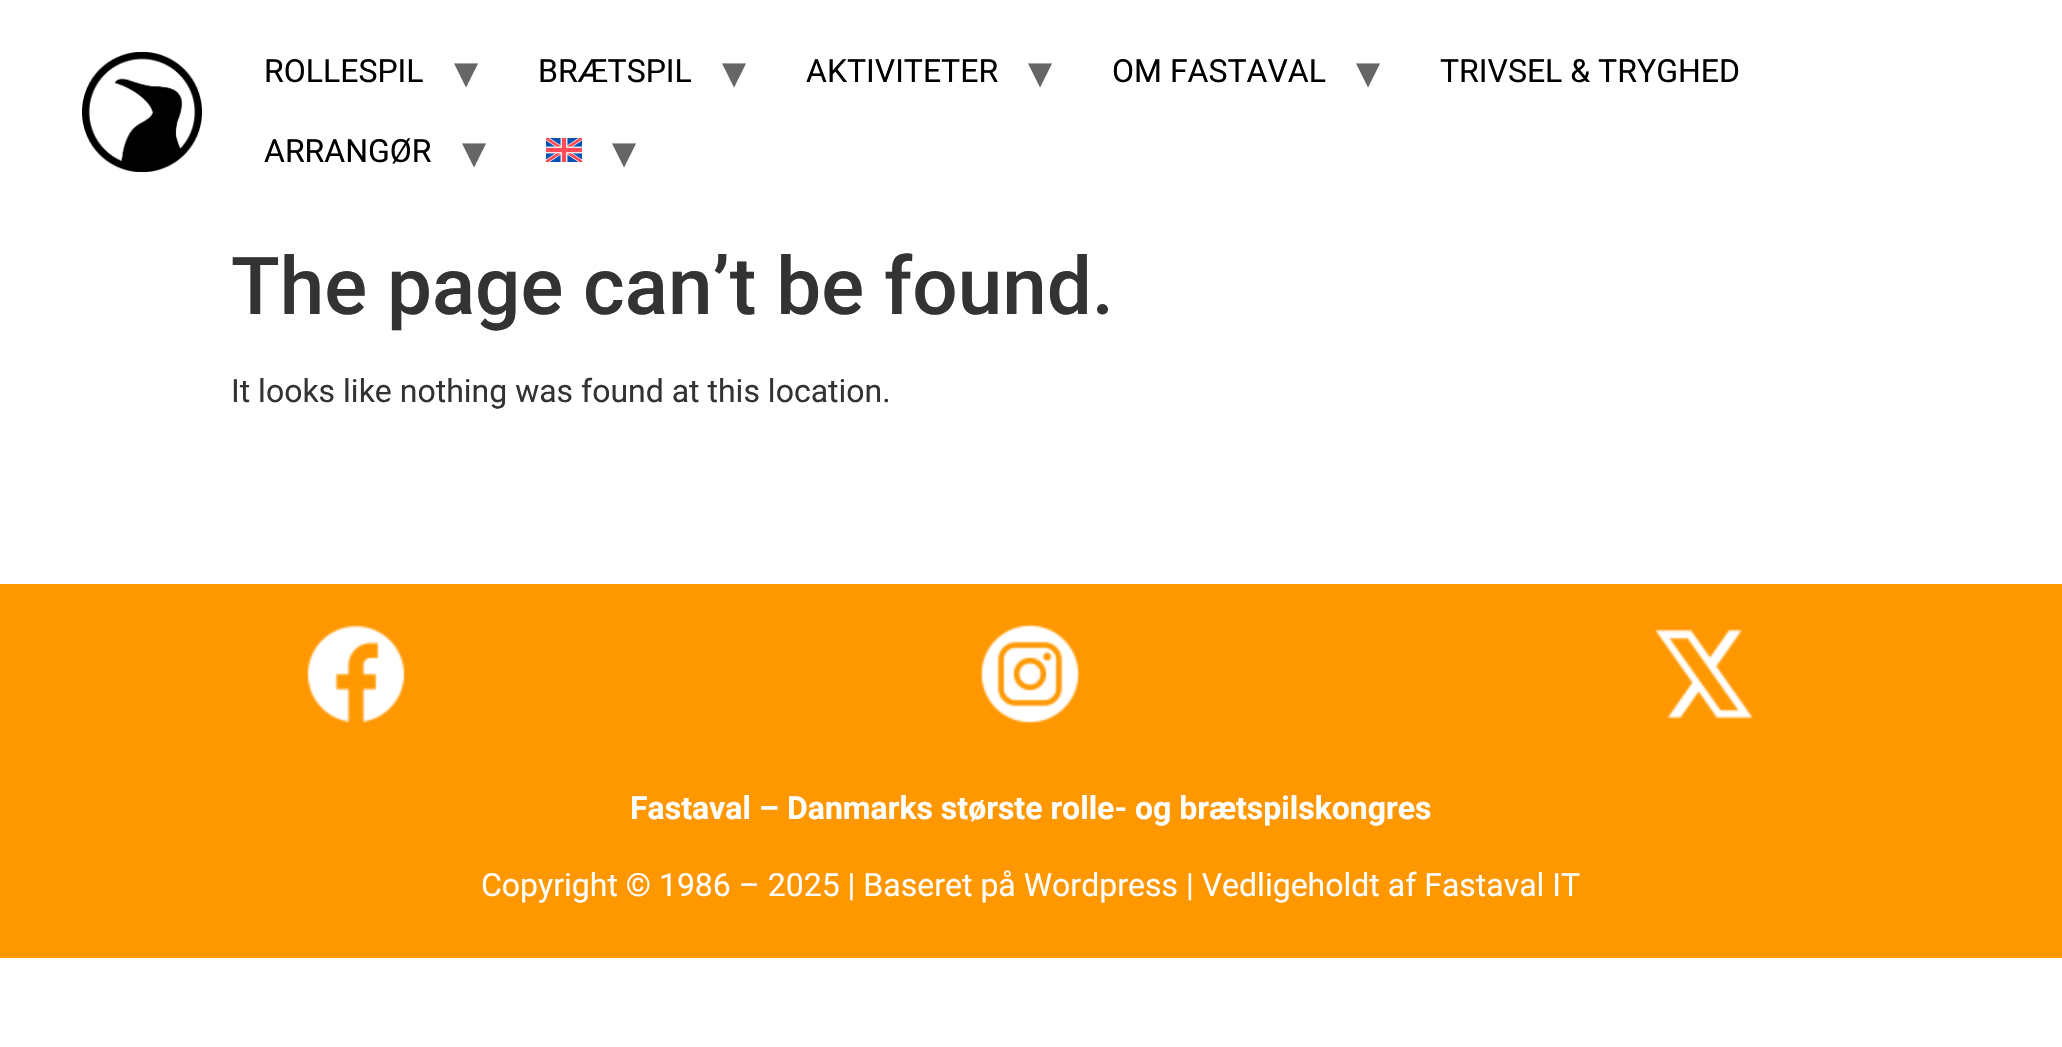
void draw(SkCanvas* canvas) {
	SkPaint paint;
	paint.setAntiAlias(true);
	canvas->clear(0xffffffff);
	canvas->drawImageRect(SkImages::DeferredFromEncodedData(SkData::MakeFromFileName("img1.png")), SkRect::MakeXYWH(82, 52, 120, 120), SkSamplingOptions());
	SkFont f1(fontMgr->matchFamilyStyle("Roboto", SkFontStyle::Normal()), 32);
	f1.setSubpixel(true);
	paint.setColor(0xff000000);
	canvas->drawString("ROLLESPIL", 264, 82, f1, paint);
	SkFont f2(fontMgr->matchFamilyStyle("DejaVu Sans", SkFontStyle::Normal()), 48);
	f2.setSubpixel(true);
	paint.setColor(0xff666666);
	canvas->drawString("▾", 454, 88, f2, paint);
	paint.setColor(0xff000000);
	canvas->drawString("BRÆTSPIL", 538, 82, f1, paint);
	paint.setColor(0xff666666);
	canvas->drawString("▾", 722, 88, f2, paint);
	paint.setColor(0xff000000);
	canvas->drawString("AKTIVITETER", 806, 82, f1, paint);
	paint.setColor(0xff666666);
	canvas->drawString("▾", 1028, 88, f2, paint);
	paint.setColor(0xff000000);
	canvas->drawString("OM FASTAVAL", 1112, 82, f1, paint);
	paint.setColor(0xff666666);
	canvas->drawString("▾", 1356, 88, f2, paint);
	paint.setColor(0xff000000);
	canvas->drawString("TRIVSEL & TRYGHED", 1440, 82, f1, paint);
	canvas->drawString("ARRANGØR", 264, 162, f1, paint);
	paint.setColor(0xff666666);
	canvas->drawString("▾", 462, 168, f2, paint);
	canvas->drawImageRect(SkImages::DeferredFromEncodedData(SkData::MakeFromFileName("img2.png")), SkRect::MakeXYWH(546, 138, 36, 24), SkSamplingOptions());
	canvas->drawString("▾", 612, 168, f2, paint);
	SkFont f3(fontMgr->matchFamilyStyle("Roboto", SkFontStyle(500, SkFontStyle::kNormal_Width, SkFontStyle::kUpright_Slant)), 80);
	f3.setSubpixel(true);
	paint.setColor(0xff333333);
	canvas->drawString("The page can’t be found.", 231, 314, f3, paint);
	canvas->drawString("It looks like nothing was found at this location.", 231, 402, f1, paint);
	paint.setColor(0xffff9700);
	canvas->drawRect(SkRect::MakeXYWH(0, 584, 2062, 374), paint);
	canvas->drawImageRect(SkImages::DeferredFromEncodedData(SkData::MakeFromFileName("img3.png")), SkRect::MakeXYWH(307, 625, 98, 98), SkSamplingOptions());
	canvas->drawImageRect(SkImages::DeferredFromEncodedData(SkData::MakeFromFileName("img4.png")), SkRect::MakeXYWH(980, 624, 100, 100), SkSamplingOptions());
	canvas->drawImageRect(SkImages::DeferredFromEncodedData(SkData::MakeFromFileName("img5.png")), SkRect::MakeXYWH(1655, 629, 98, 90), SkSamplingOptions());
	SkFont f4(fontMgr->matchFamilyStyle("Roboto", SkFontStyle::Bold()), 32);
	f4.setSubpixel(true);
	paint.setColor(0xffffffff);
	canvas->drawString("Fastaval – Danmarks største rolle- og brætspilskongres", 630, 819, f4, paint);
	canvas->drawString("Copyright © 1986 – 2025 | Baseret på Wordpress | Vedligeholdt af Fastaval IT", 481, 896, f1, paint);
}
